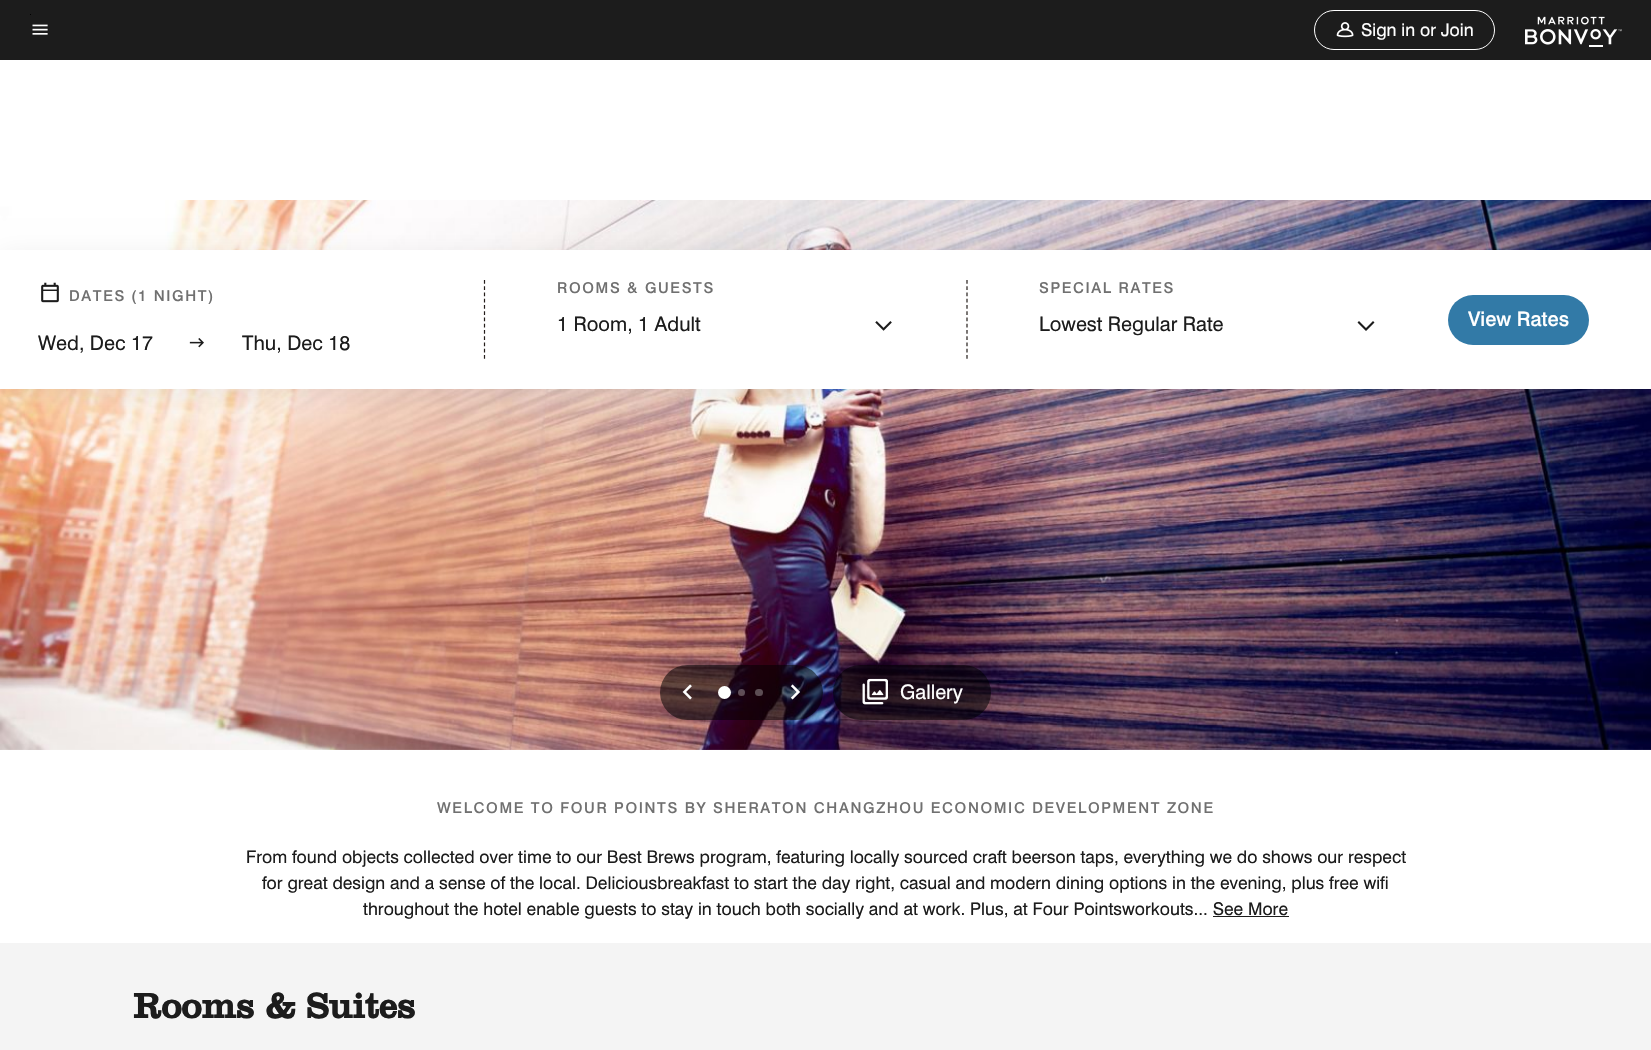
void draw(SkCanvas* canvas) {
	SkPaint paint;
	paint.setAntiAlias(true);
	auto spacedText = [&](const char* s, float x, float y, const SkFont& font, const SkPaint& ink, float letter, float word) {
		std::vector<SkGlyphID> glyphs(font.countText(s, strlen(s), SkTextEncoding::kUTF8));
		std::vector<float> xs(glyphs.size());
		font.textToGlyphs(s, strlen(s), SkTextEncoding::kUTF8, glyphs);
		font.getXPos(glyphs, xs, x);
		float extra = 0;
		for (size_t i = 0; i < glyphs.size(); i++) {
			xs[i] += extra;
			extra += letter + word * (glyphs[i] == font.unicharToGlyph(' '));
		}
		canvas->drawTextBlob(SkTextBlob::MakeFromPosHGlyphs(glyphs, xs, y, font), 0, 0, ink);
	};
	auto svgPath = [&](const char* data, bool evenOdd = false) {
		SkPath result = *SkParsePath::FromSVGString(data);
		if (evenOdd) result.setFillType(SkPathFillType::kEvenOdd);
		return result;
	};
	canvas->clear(0xffffffff);
	paint.setColor(0xff1c1c1c);
	canvas->drawRect(SkRect::MakeXYWH(0, 0, 1651, 60), paint);
	paint.setColor(0xff000000);
	canvas->drawRect(SkRect::MakeXYWH(30, 14, 1, 1), paint);
	canvas->drawImageRect(SkImages::DeferredFromEncodedData(SkData::MakeFromFileName("img1.png")), SkRect::MakeXYWH(32, 24, 16, 11), SkSamplingOptions());
	paint.setStroke(true);
	paint.setStrokeWidth(1);
	paint.setColor(0xffffffff);
	canvas->drawRoundRect(SkRect::MakeXYWH(1314.5, 10.5, 180, 39), 19.5, 19.5, paint);
	canvas->drawImageRect(SkImages::DeferredFromEncodedData(SkData::MakeFromFileName("img2.png")), SkRect::MakeXYWH(1336, 22, 18, 16), SkSamplingOptions());
	SkFont f1(fontMgr->matchFamilyStyle("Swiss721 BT", SkFontStyle::Normal()), 17.5);
	f1.setSubpixel(true);
	paint.setStroke(false);
	canvas->drawString("Sign in or Join", 1361, 36, f1, paint);
	canvas->drawImageRect(SkImages::DeferredFromEncodedData(SkData::MakeFromFileName("img3.png")), SkRect::MakeXYWH(1525, 16, 97, 29), SkSamplingOptions());
	canvas->drawRect(SkRect::MakeXYWH(1589, 45, 14, 2), paint);
	canvas->drawImageRect(SkImages::DeferredFromEncodedData(SkData::MakeFromFileName("img8.png")), SkRect::MakeXYWH(0, 749, 1, 1), SkSamplingOptions());
	canvas->drawImageRect(SkImages::DeferredFromEncodedData(SkData::MakeFromFileName("img9.png")), SkRect::MakeXYWH(1650, 749, 1, 1), SkSamplingOptions());
	canvas->drawImageRect(SkImages::DeferredFromEncodedData(SkData::MakeFromFileName("img7.png")), SkRect::MakeXYWH(0, 200, 1651, 550), SkSamplingOptions());
	paint.setColor(0x12000000);
	paint.setMaskFilter(SkMaskFilter::MakeBlur(kNormal_SkBlurStyle, 12.5));
	canvas->drawRect(SkRect::MakeXYWH(0, 255, 1651, 139), paint);
	paint.setMaskFilter(nullptr);
	paint.setColor(0xffffffff);
	canvas->drawRect(SkRect::MakeXYWH(0, 250, 1651, 139), paint);
	canvas->drawImageRect(SkImages::DeferredFromEncodedData(SkData::MakeFromFileName("img4.png")), SkRect::MakeXYWH(41, 282, 18, 21), SkSamplingOptions());
	SkFont f2(fontMgr->matchFamilyStyle("Swiss721 BT", SkFontStyle(500, SkFontStyle::kNormal_Width, SkFontStyle::kUpright_Slant)), 15);
	f2.setSubpixel(true);
	paint.setColor(0xff707070);
	spacedText("DATES", 69, 301, f2, paint, 1.62, 0);
	spacedText("(1 NIGHT)", 131, 301, f2, paint, 1.62, 0);
	SkFont f3(fontMgr->matchFamilyStyle("Swiss721 BT", SkFontStyle::Normal()), 20);
	f3.setSubpixel(true);
	paint.setColor(0xff1c1c1c);
	canvas->drawString("Wed, Dec 17", 38, 350, f3, paint);
	canvas->drawImageRect(SkImages::DeferredFromEncodedData(SkData::MakeFromFileName("img5.png")), SkRect::MakeXYWH(189, 338, 15, 10), SkSamplingOptions());
	canvas->drawString("Thu, Dec 18", 242, 350, f3, paint);
	paint.setStroke(true);
	paint.setStrokeWidth(1.2);
	paint.setColor(0xff231c19);
	paint.setPathEffect(SkDashPathEffect::Make({{3.75f, 2.5f}}, 0));
	canvas->drawPath(svgPath("M484.5 280V359"), paint);
	paint.setPathEffect(nullptr);
	paint.setStroke(false);
	paint.setColor(0xff707070);
	spacedText("ROOMS & GUESTS", 557, 293, f2, paint, 1.62, 0);
	paint.setColor(0xff1c1c1c);
	canvas->drawString("1 Room, 1 Adult", 557, 331, f3, paint);
	canvas->drawImageRect(SkImages::DeferredFromEncodedData(SkData::MakeFromFileName("img6.png")), SkRect::MakeXYWH(875, 321, 17, 10), SkSamplingOptions());
	paint.setStroke(true);
	paint.setColor(0xff231c19);
	paint.setPathEffect(SkDashPathEffect::Make({{3.75f, 2.5f}}, 0));
	canvas->drawPath(svgPath("M967 280V359"), paint);
	paint.setPathEffect(nullptr);
	paint.setStroke(false);
	paint.setColor(0xff707070);
	spacedText("SPECIAL RATES", 1039, 293, f2, paint, 1.62, 0);
	paint.setColor(0xff1c1c1c);
	canvas->drawString("Lowest Regular Rate", 1039, 331, f3, paint);
	canvas->drawPath(svgPath("M1359 321L1357.5 322.5L1366 331L1374.5 322.5L1373 321L1366 328Z"), paint);
	paint.setColor(0xff327aa7);
	canvas->drawRoundRect(SkRect::MakeXYWH(1448, 295, 141, 50), 25, 25, paint);
	SkFont f4(fontMgr->matchFamilyStyle("Swiss721 BT", SkFontStyle(500, SkFontStyle::kNormal_Width, SkFontStyle::kUpright_Slant)), 20);
	f4.setSubpixel(true);
	paint.setColor(0xffffffff);
	canvas->drawString("View Rates", 1468, 326, f4, paint);
	paint.setColor(0x8a000000);
	canvas->drawRoundRect(SkRect::MakeXYWH(660, 665, 163, 55), 27.5, 27.5, paint);
	canvas->drawImageRect(SkImages::DeferredFromEncodedData(SkData::MakeFromFileName("img10.png")), SkRect::MakeXYWH(682, 684, 10, 16), SkSamplingOptions());
	paint.setColor(0xffffffff);
	canvas->drawCircle(724.5, 692.5, 6.5, paint);
	paint.setColor(0x4dffffff);
	canvas->drawCircle(741.5, 692.5, 3.5, paint);
	paint.setColor(0xff5c4d53);
	canvas->drawRoundRect(SkRect::MakeXYWH(755, 689, 8, 7), 3.5, 3.5, paint);
	canvas->drawImageRect(SkImages::DeferredFromEncodedData(SkData::MakeFromFileName("img11.png")), SkRect::MakeXYWH(790, 684, 10, 16), SkSamplingOptions());
	paint.setColor(0x8a000000);
	canvas->drawRoundRect(SkRect::MakeXYWH(833, 665, 158, 55), 27.5, 27.5, paint);
	canvas->drawImageRect(SkImages::DeferredFromEncodedData(SkData::MakeFromFileName("img12.png")), SkRect::MakeXYWH(862, 678, 26, 27), SkSamplingOptions());
	paint.setColor(0xffffffff);
	canvas->drawString("Gallery", 900, 699, f3, paint);
	paint.setColor(0xff707070);
	spacedText("WELCOME TO FOUR POINTS BY SHERATON CHANGZHOU ECONOMIC DEVELOPMENT ZONE", 437, 813, f2, paint, 1.62, 0);
	paint.setColor(0xff1c1c1c);
	canvas->drawString("From found objects collected over time to our Best Brews program, featuring locally sourced craft beerson taps, everything we do shows our respect", 246, 863, f1, paint);
	canvas->drawString("for great design and a sense of the local. Deliciousbreakfast to start the day right, casual and modern dining options in the evening, plus free wifi", 262, 889, f1, paint);
	canvas->drawString("throughout the hotel enable guests to stay in touch both socially and at work. Plus, at Four Pointsworkouts... See More", 363, 915, f1, paint);
	canvas->drawRect(SkRect::MakeXYWH(1213, 916, 76, 1), paint);
	paint.setColor(0xfff4f4f4);
	canvas->drawRect(SkRect::MakeXYWH(0, 943, 1651, 107), paint);
	SkFont f5(fontMgr->matchFamilyStyle("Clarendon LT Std", SkFontStyle::Bold()), 36.25);
	f5.setSubpixel(true);
	paint.setColor(0xff1c1c1c);
	canvas->drawString("Rooms & Suites", 133, 1018, f5, paint);
}
